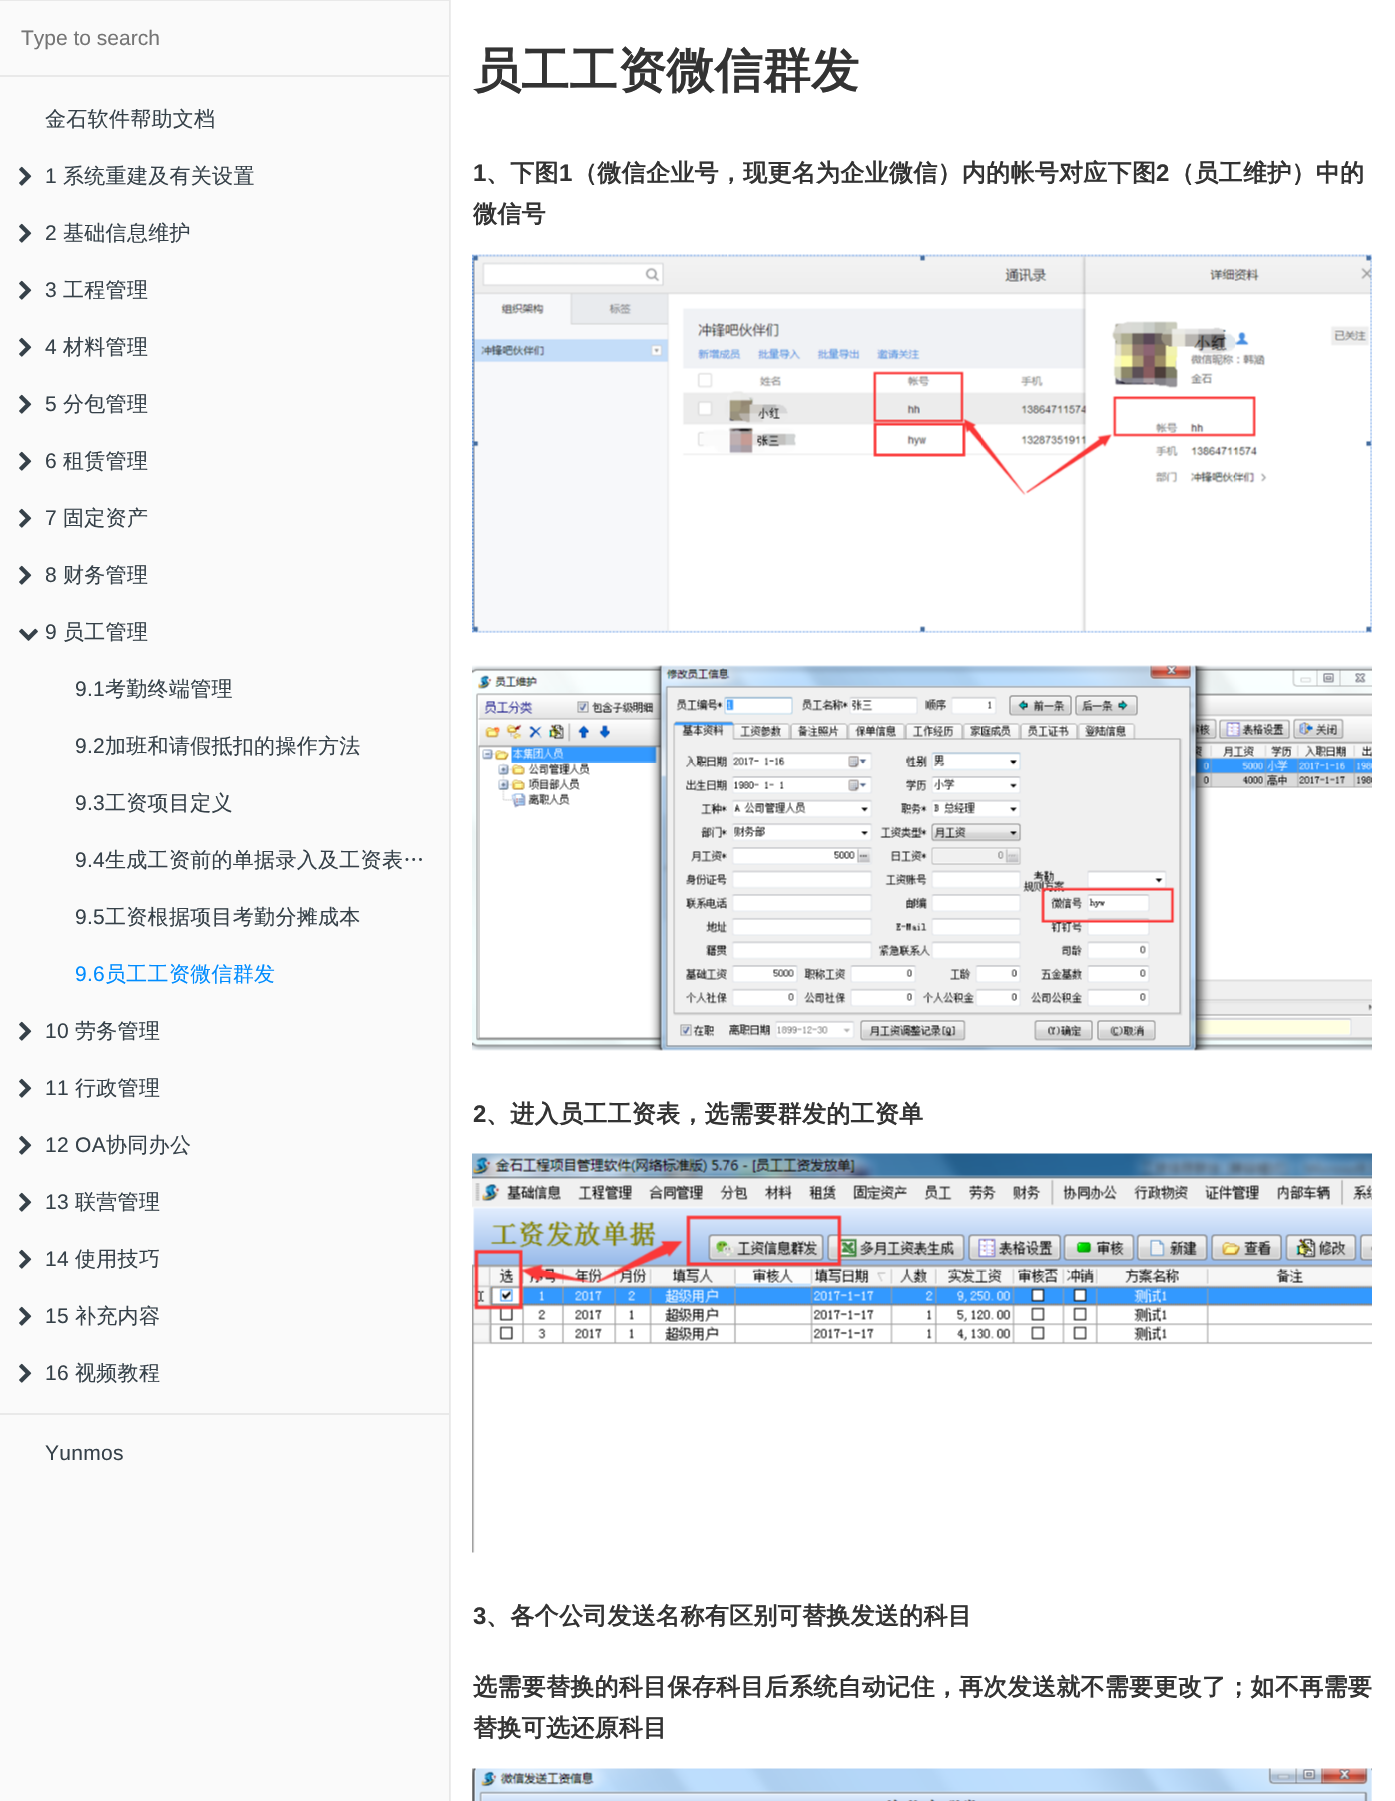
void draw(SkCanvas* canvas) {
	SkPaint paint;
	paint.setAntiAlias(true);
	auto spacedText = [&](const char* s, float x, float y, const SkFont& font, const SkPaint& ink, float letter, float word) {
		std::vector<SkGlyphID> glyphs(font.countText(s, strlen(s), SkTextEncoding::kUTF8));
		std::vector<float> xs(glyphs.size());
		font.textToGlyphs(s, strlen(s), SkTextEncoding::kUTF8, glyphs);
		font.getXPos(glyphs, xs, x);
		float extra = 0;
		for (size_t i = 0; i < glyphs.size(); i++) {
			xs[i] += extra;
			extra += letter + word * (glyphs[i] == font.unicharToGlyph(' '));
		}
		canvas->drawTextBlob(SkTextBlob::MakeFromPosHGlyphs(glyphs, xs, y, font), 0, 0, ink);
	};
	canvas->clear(0xffffffff);
	paint.setColor(0xffededed);
	canvas->drawRect(SkRect::MakeXYWH(450, 0, 1, 1801), paint);
	paint.setColor(0xfffafafa);
	canvas->drawRect(SkRect::MakeXYWH(0, 1, 449, 1800), paint);
	paint.setColor(0xffe8e8e8);
	canvas->drawRect(SkRect::MakeXYWH(449, 0, 1, 1801), paint);
	paint.setColor(0xffe9e9e9);
	canvas->drawRect(SkRect::MakeXYWH(0, 0, 449, 1), paint);
	canvas->drawRect(SkRect::MakeXYWH(0, 75, 449, 2), paint);
	SkFont f1(fontMgr->matchFamilyStyle("Liberation Sans", SkFontStyle::Normal()), 21);
	f1.setSubpixel(true);
	paint.setColor(0xff757575);
	canvas->drawString("Type to search", 21, 45, f1, paint);
	SkFont f2(fontMgr->matchFamilyStyle("WenQuanYi Zen Hei", SkFontStyle(500, SkFontStyle::kNormal_Width, SkFontStyle::kUpright_Slant)), 21);
	f2.setSubpixel(true);
	paint.setColor(0xff364149);
	spacedText("金石软件帮助文档", 45, 126, f2, paint, 0.3, 0);
	canvas->drawImageRect(SkImages::DeferredFromEncodedData(SkData::MakeFromFileName("img1.png")), SkRect::MakeXYWH(19, 166, 13, 20), SkSamplingOptions());
	spacedText("1", 45, 183, f1, paint, 0.3, 0);
	spacedText("系统重建及有关设置", 63, 183, f2, paint, 0.3, 0);
	canvas->drawImageRect(SkImages::DeferredFromEncodedData(SkData::MakeFromFileName("img1.png")), SkRect::MakeXYWH(19, 223, 13, 20), SkSamplingOptions());
	spacedText("2", 45, 240, f1, paint, 0.3, 0);
	spacedText("基础信息维护", 63, 240, f2, paint, 0.3, 0);
	canvas->drawImageRect(SkImages::DeferredFromEncodedData(SkData::MakeFromFileName("img1.png")), SkRect::MakeXYWH(19, 280, 13, 20), SkSamplingOptions());
	spacedText("3", 45, 297, f1, paint, 0.3, 0);
	spacedText("工程管理", 63, 297, f2, paint, 0.3, 0);
	canvas->drawImageRect(SkImages::DeferredFromEncodedData(SkData::MakeFromFileName("img1.png")), SkRect::MakeXYWH(19, 337, 13, 20), SkSamplingOptions());
	spacedText("4", 45, 354, f1, paint, 0.3, 0);
	spacedText("材料管理", 63, 354, f2, paint, 0.3, 0);
	canvas->drawImageRect(SkImages::DeferredFromEncodedData(SkData::MakeFromFileName("img1.png")), SkRect::MakeXYWH(19, 394, 13, 20), SkSamplingOptions());
	spacedText("5", 45, 411, f1, paint, 0.3, 0);
	spacedText("分包管理", 63, 411, f2, paint, 0.3, 0);
	canvas->drawImageRect(SkImages::DeferredFromEncodedData(SkData::MakeFromFileName("img1.png")), SkRect::MakeXYWH(19, 451, 13, 20), SkSamplingOptions());
	spacedText("6", 45, 468, f1, paint, 0.3, 0);
	spacedText("租赁管理", 63, 468, f2, paint, 0.3, 0);
	canvas->drawImageRect(SkImages::DeferredFromEncodedData(SkData::MakeFromFileName("img1.png")), SkRect::MakeXYWH(19, 508, 13, 20), SkSamplingOptions());
	spacedText("7", 45, 525, f1, paint, 0.3, 0);
	spacedText("固定资产", 63, 525, f2, paint, 0.3, 0);
	canvas->drawImageRect(SkImages::DeferredFromEncodedData(SkData::MakeFromFileName("img1.png")), SkRect::MakeXYWH(19, 565, 13, 20), SkSamplingOptions());
	spacedText("8", 45, 582, f1, paint, 0.3, 0);
	spacedText("财务管理", 63, 582, f2, paint, 0.3, 0);
	canvas->drawImageRect(SkImages::DeferredFromEncodedData(SkData::MakeFromFileName("img2.png")), SkRect::MakeXYWH(19, 628, 19, 13), SkSamplingOptions());
	spacedText("9", 45, 639, f1, paint, 0.3, 0);
	spacedText("员工管理", 63, 639, f2, paint, 0.3, 0);
	spacedText("9.1", 75, 696, f1, paint, 0.3, 0);
	spacedText("考勤终端管理", 105, 696, f2, paint, 0.3, 0);
	spacedText("9.2", 75, 753, f1, paint, 0.3, 0);
	spacedText("加班和请假抵扣的操作方法", 105, 753, f2, paint, 0.3, 0);
	spacedText("9.3", 75, 810, f1, paint, 0.3, 0);
	spacedText("工资项目定义", 105, 810, f2, paint, 0.3, 0);
	spacedText("9.4", 75, 867, f1, paint, 0.3, 0);
	spacedText("生成工资前的单据录入及工资表…", 105, 867, f2, paint, 0.3, 0);
	spacedText("9.5", 75, 924, f1, paint, 0.3, 0);
	spacedText("工资根据项目考勤分摊成本", 105, 924, f2, paint, 0.3, 0);
	paint.setColor(0xff008cff);
	spacedText("9.6", 75, 981, f1, paint, 0.3, 0);
	spacedText("员工工资微信群发", 105, 981, f2, paint, 0.3, 0);
	canvas->drawImageRect(SkImages::DeferredFromEncodedData(SkData::MakeFromFileName("img1.png")), SkRect::MakeXYWH(19, 1021, 13, 20), SkSamplingOptions());
	paint.setColor(0xff364149);
	spacedText("10", 45, 1038, f1, paint, 0.3, 0);
	spacedText("劳务管理", 75, 1038, f2, paint, 0.3, 0);
	canvas->drawImageRect(SkImages::DeferredFromEncodedData(SkData::MakeFromFileName("img1.png")), SkRect::MakeXYWH(19, 1078, 13, 20), SkSamplingOptions());
	spacedText("11", 45, 1095, f1, paint, 0.3, 0);
	spacedText("行政管理", 75, 1095, f2, paint, 0.3, 0);
	canvas->drawImageRect(SkImages::DeferredFromEncodedData(SkData::MakeFromFileName("img1.png")), SkRect::MakeXYWH(19, 1135, 13, 20), SkSamplingOptions());
	spacedText("12 OA", 45, 1152, f1, paint, 0.3, 0);
	spacedText("协同办公", 106, 1152, f2, paint, 0.3, 0);
	canvas->drawImageRect(SkImages::DeferredFromEncodedData(SkData::MakeFromFileName("img1.png")), SkRect::MakeXYWH(19, 1192, 13, 20), SkSamplingOptions());
	spacedText("13", 45, 1209, f1, paint, 0.3, 0);
	spacedText("联营管理", 75, 1209, f2, paint, 0.3, 0);
	canvas->drawImageRect(SkImages::DeferredFromEncodedData(SkData::MakeFromFileName("img1.png")), SkRect::MakeXYWH(19, 1249, 13, 20), SkSamplingOptions());
	spacedText("14", 45, 1266, f1, paint, 0.3, 0);
	spacedText("使用技巧", 75, 1266, f2, paint, 0.3, 0);
	canvas->drawImageRect(SkImages::DeferredFromEncodedData(SkData::MakeFromFileName("img1.png")), SkRect::MakeXYWH(19, 1306, 13, 20), SkSamplingOptions());
	spacedText("15", 45, 1323, f1, paint, 0.3, 0);
	spacedText("补充内容", 75, 1323, f2, paint, 0.3, 0);
	canvas->drawImageRect(SkImages::DeferredFromEncodedData(SkData::MakeFromFileName("img1.png")), SkRect::MakeXYWH(19, 1363, 13, 20), SkSamplingOptions());
	spacedText("16", 45, 1380, f1, paint, 0.3, 0);
	spacedText("视频教程", 75, 1380, f2, paint, 0.3, 0);
	paint.setColor(0xffe9e9e9);
	canvas->drawRect(SkRect::MakeXYWH(0, 1413, 449, 2), paint);
	paint.setColor(0xff364149);
	spacedText("Yunmos", 45, 1460, f1, paint, 0.3, 0);
	SkFont f3(fontMgr->matchFamilyStyle("WenQuanYi Zen Hei", SkFontStyle::Bold()), 48);
	f3.setSubpixel(true);
	paint.setColor(0xff333333);
	spacedText("员工工资微信群发", 473, 87, f3, paint, 0.3, 0);
	SkFont f4(fontMgr->matchFamilyStyle("Liberation Sans", SkFontStyle::Bold()), 24);
	f4.setSubpixel(true);
	spacedText("1", 473, 181, f4, paint, 0.3, 0);
	SkFont f5(fontMgr->matchFamilyStyle("WenQuanYi Zen Hei", SkFontStyle::Bold()), 24);
	f5.setSubpixel(true);
	spacedText("、下图", 486, 181, f5, paint, 0.3, 0);
	spacedText("1", 559, 181, f4, paint, 0.3, 0);
	spacedText("（微信企业号，现更名为企业微信）内的帐号对应下图", 573, 181, f5, paint, 0.3, 0);
	spacedText("2", 1156, 181, f4, paint, 0.3, 0);
	spacedText("（员工维护）中的", 1170, 181, f5, paint, 0.3, 0);
	spacedText("微信号", 473, 222, f5, paint, 0.3, 0);
	canvas->drawImageRect(SkImages::DeferredFromEncodedData(SkData::MakeFromFileName("img3.png")), SkRect::MakeXYWH(472, 254, 900, 379), SkSamplingOptions());
	canvas->drawImageRect(SkImages::DeferredFromEncodedData(SkData::MakeFromFileName("img4.png")), SkRect::MakeXYWH(472, 665, 900, 386), SkSamplingOptions());
	spacedText("2", 473, 1122, f4, paint, 0.3, 0);
	spacedText("、进入员工工资表，选需要群发的工资单", 486, 1122, f5, paint, 0.3, 0);
	canvas->drawImageRect(SkImages::DeferredFromEncodedData(SkData::MakeFromFileName("img5.png")), SkRect::MakeXYWH(472, 1153, 900, 400), SkSamplingOptions());
	spacedText("3", 473, 1624, f4, paint, 0.3, 0);
	spacedText("、各个公司发送名称有区别可替换发送的科目", 486, 1624, f5, paint, 0.3, 0);
	spacedText("选需要替换的科目保存科目后系统自动记住，再次发送就不需要更改了；如不再需要", 473, 1695, f5, paint, 0.3, 0);
	spacedText("替换可选还原科目", 473, 1736, f5, paint, 0.3, 0);
	canvas->drawImageRect(SkImages::DeferredFromEncodedData(SkData::MakeFromFileName("img6.png")), SkRect::MakeXYWH(472, 1768, 900, 33), SkSamplingOptions());
}
